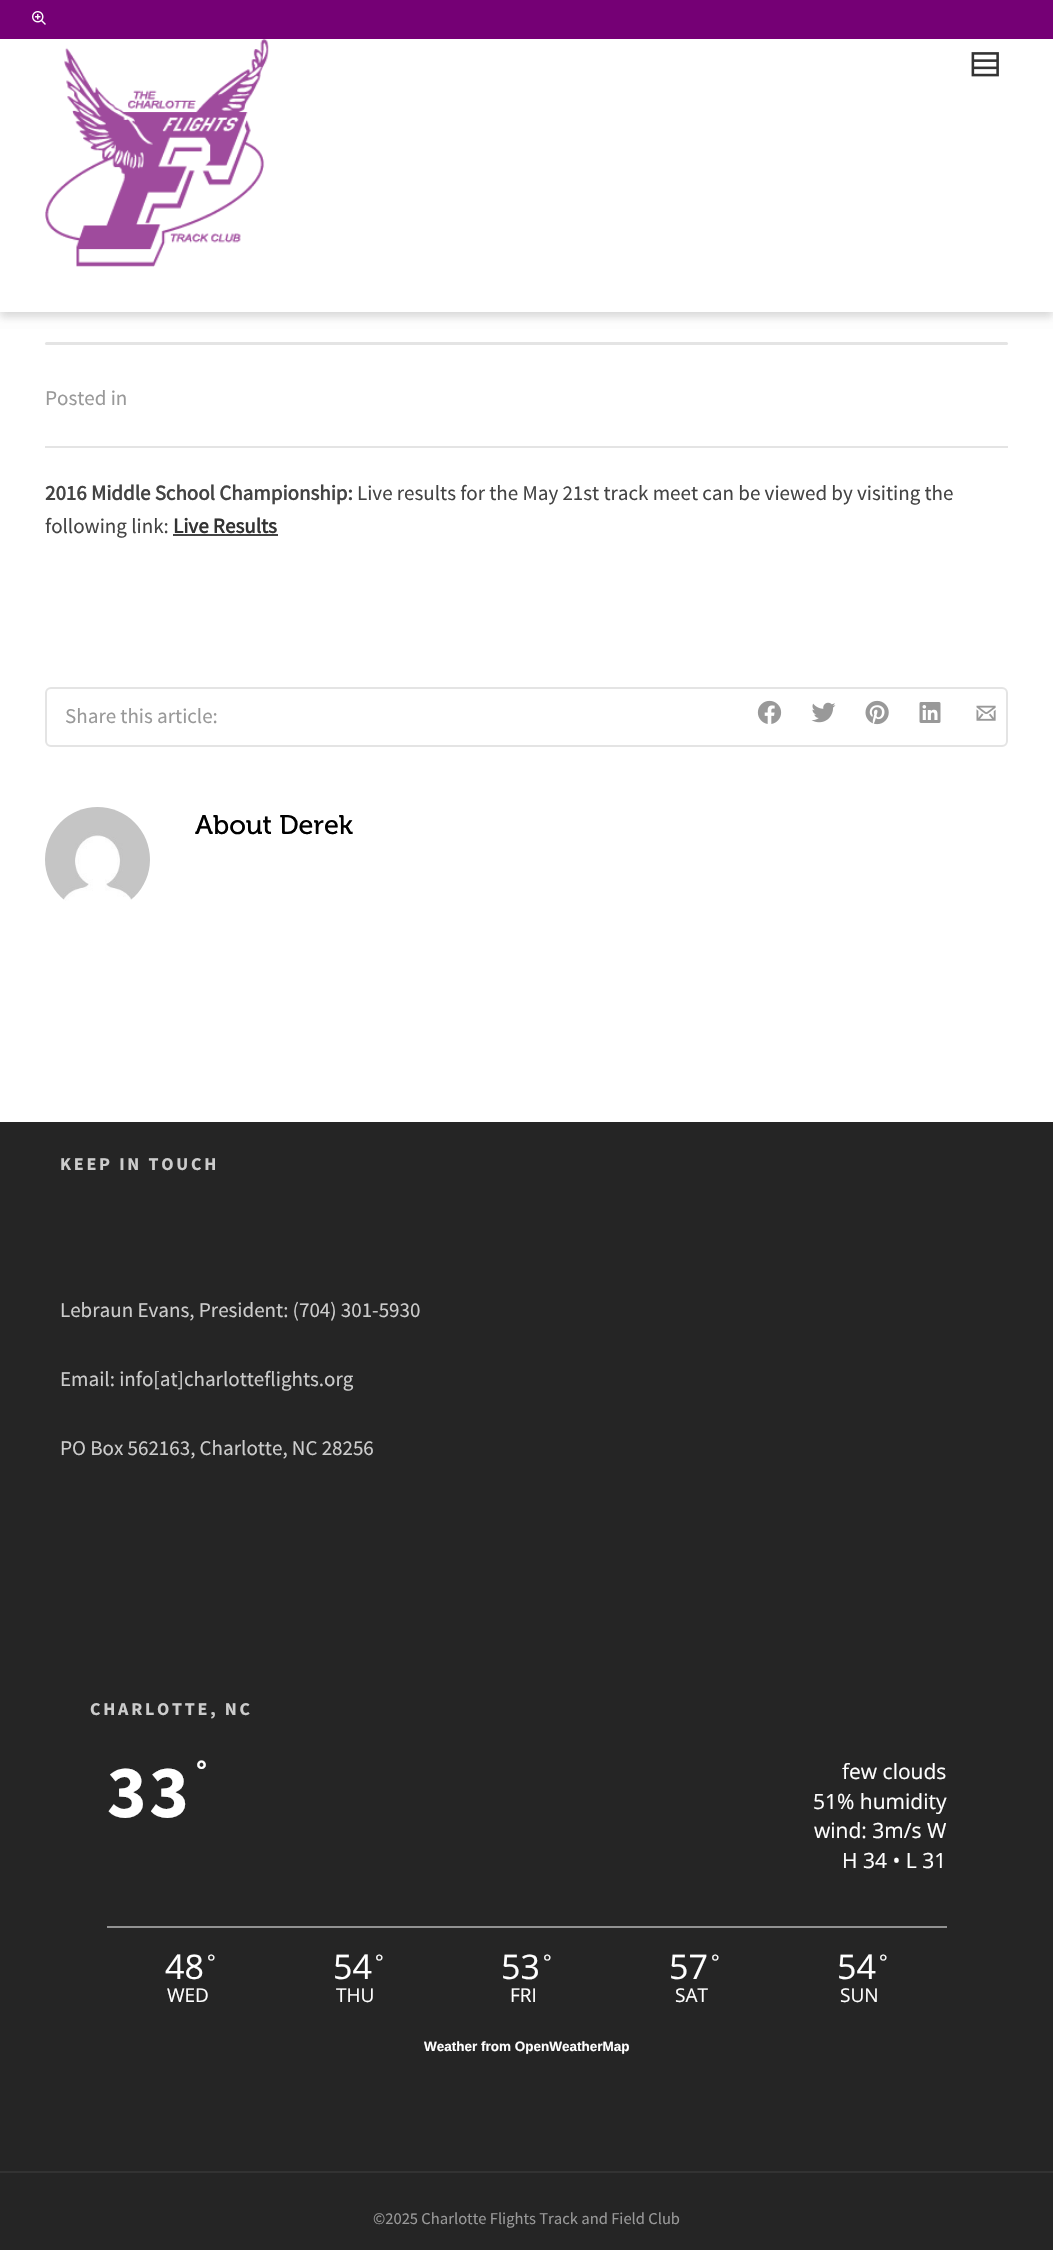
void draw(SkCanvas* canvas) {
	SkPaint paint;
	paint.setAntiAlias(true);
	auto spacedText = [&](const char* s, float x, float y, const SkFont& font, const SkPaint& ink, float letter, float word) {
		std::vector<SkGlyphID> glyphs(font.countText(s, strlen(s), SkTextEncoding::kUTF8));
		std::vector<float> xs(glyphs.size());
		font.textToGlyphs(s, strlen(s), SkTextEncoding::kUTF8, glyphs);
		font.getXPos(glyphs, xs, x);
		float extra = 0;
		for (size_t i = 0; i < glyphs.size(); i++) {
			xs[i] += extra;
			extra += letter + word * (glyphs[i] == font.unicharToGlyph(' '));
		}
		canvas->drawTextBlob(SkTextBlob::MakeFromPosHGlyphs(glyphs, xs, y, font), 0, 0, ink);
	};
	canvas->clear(0xffffffff);
	paint.setColor(0x1a000000);
	paint.setMaskFilter(SkMaskFilter::MakeBlur(kNormal_SkBlurStyle, 4));
	canvas->drawRect(SkRect::MakeXYWH(0, 44, 1053, 273), paint);
	paint.setMaskFilter(nullptr);
	paint.setColor(0x0d000000);
	paint.setMaskFilter(SkMaskFilter::MakeBlur(kNormal_SkBlurStyle, 4));
	canvas->drawRect(SkRect::MakeXYWH(0, 44, 1053, 273), paint);
	paint.setMaskFilter(nullptr);
	paint.setColor(0xff750075);
	canvas->drawRect(SkRect::MakeXYWH(0, 0, 1053, 39), paint);
	canvas->drawImageRect(SkImages::DeferredFromEncodedData(SkData::MakeFromFileName("img1.png")), SkRect::MakeXYWH(32, 11, 14, 14), SkSamplingOptions());
	paint.setColor(0xffffffff);
	canvas->drawRect(SkRect::MakeXYWH(0, 39, 1053, 273), paint);
	canvas->drawImageRect(SkImages::DeferredFromEncodedData(SkData::MakeFromFileName("img2.png")), SkRect::MakeXYWH(45, 39, 224, 228), SkSamplingOptions());
	canvas->drawImageRect(SkImages::DeferredFromEncodedData(SkData::MakeFromFileName("img3.png")), SkRect::MakeXYWH(971, 52, 28, 25), SkSamplingOptions());
	paint.setColor(0xffe4e4e4);
	canvas->drawRoundRect(SkRect::MakeXYWH(45, 342, 963, 3), 1.5, 1.5, paint);
	canvas->drawRect(SkRect::MakeXYWH(45, 446, 963, 2), paint);
	SkFont f1(fontMgr->matchFamilyStyle("Source Sans Pro", SkFontStyle::Normal()), 21);
	f1.setSubpixel(true);
	paint.setColor(0xff999999);
	canvas->drawString("Posted in", 45, 405, f1, paint);
	SkFont f2(fontMgr->matchFamilyStyle("Source Sans Pro", SkFontStyle::Bold()), 21);
	f2.setSubpixel(true);
	paint.setColor(0xff444444);
	canvas->drawString("2016 Middle School Championship:", 45, 500, f2, paint);
	canvas->drawString("Live results for the May 21st track meet can be viewed by visiting the", 357, 500, f1, paint);
	canvas->drawString("following link:", 45, 533, f1, paint);
	paint.setColor(0xff333333);
	canvas->drawString("Live Results", 173, 533, f2, paint);
	paint.setColor(0xff444444);
	canvas->drawRect(SkRect::MakeXYWH(173, 534, 105, 2), paint);
	paint.setStroke(true);
	paint.setStrokeWidth(2);
	paint.setColor(0xffe4e4e4);
	canvas->drawRoundRect(SkRect::MakeXYWH(46, 688, 961, 58), 5, 5, paint);
	paint.setStroke(false);
	paint.setColor(0xff999999);
	canvas->drawString("Share this article:", 65, 723, f1, paint);
	canvas->drawImageRect(SkImages::DeferredFromEncodedData(SkData::MakeFromFileName("img4.png")), SkRect::MakeXYWH(757, 700, 25, 24), SkSamplingOptions());
	canvas->drawImageRect(SkImages::DeferredFromEncodedData(SkData::MakeFromFileName("img5.png")), SkRect::MakeXYWH(811, 702, 25, 21), SkSamplingOptions());
	canvas->drawImageRect(SkImages::DeferredFromEncodedData(SkData::MakeFromFileName("img6.png")), SkRect::MakeXYWH(865, 700, 24, 25), SkSamplingOptions());
	canvas->drawImageRect(SkImages::DeferredFromEncodedData(SkData::MakeFromFileName("img7.png")), SkRect::MakeXYWH(919, 702, 22, 21), SkSamplingOptions());
	canvas->drawImageRect(SkImages::DeferredFromEncodedData(SkData::MakeFromFileName("img8.png")), SkRect::MakeXYWH(976, 705, 20, 16), SkSamplingOptions());
	canvas->drawImageRect(SkImages::DeferredFromEncodedData(SkData::MakeFromFileName("img9.png")), SkRect::MakeXYWH(45, 807, 105, 94), SkSamplingOptions());
	SkFont f3(fontMgr->matchFamilyStyle("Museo", SkFontStyle::Normal()), 27);
	f3.setSubpixel(true);
	paint.setColor(0xff000000);
	canvas->drawString("About Derek", 195, 834, f3, paint);
	paint.setColor(0xff252525);
	canvas->drawRect(SkRect::MakeXYWH(0, 1122, 1053, 1049), paint);
	SkFont f4(fontMgr->matchFamilyStyle("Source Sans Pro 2", SkFontStyle::Bold()), 18);
	f4.setSubpixel(true);
	paint.setColor(0xffcccccc);
	spacedText("KEEP IN TOUCH", 60, 1170, f4, paint, 2.75, 0);
	canvas->drawString("Lebraun Evans, President: (704) 301-5930", 60, 1317, f1, paint);
	canvas->drawString("Email: info[at]charlotteflights.org", 60, 1386, f1, paint);
	canvas->drawString("PO Box 562163, Charlotte, NC 28256", 60, 1455, f1, paint);
	spacedText("CHARLOTTE, NC", 90, 1715, f4, paint, 2.75, 0);
	SkFont f5(fontMgr->matchFamilyStyle("Source Sans Pro 2", SkFontStyle::Bold()), 30);
	f5.setSubpixel(true);
	paint.setColor(0xffffffff);
	spacedText("°", 196, 1781, f5, paint, 2.75, 0);
	SkFont f6(fontMgr->matchFamilyStyle("Source Sans Pro 2", SkFontStyle::Bold()), 75);
	f6.setSubpixel(true);
	spacedText("33", 107, 1817, f6, paint, 2.75, 0);
	SkFont f7(fontMgr->matchFamilyStyle("Open Sans", SkFontStyle::Normal()), 21);
	f7.setSubpixel(true);
	canvas->drawString("few clouds", 842, 1779, f7, paint);
	canvas->drawString("51% humidity", 813, 1809, f7, paint);
	canvas->drawString("wind: 3m/s W", 814, 1838, f7, paint);
	canvas->drawString("H 34 • L 31", 842, 1868, f7, paint);
	paint.setColor(0xff929292);
	canvas->drawRect(SkRect::MakeXYWH(107, 1926, 840, 2), paint);
	SkFont f8(fontMgr->matchFamilyStyle("Open Sans", SkFontStyle::Normal()), 34);
	f8.setSubpixel(true);
	paint.setColor(0xffffffff);
	canvas->drawString("48", 165, 1979, f8, paint);
	SkFont f9(fontMgr->matchFamilyStyle("Open Sans", SkFontStyle::Normal()), 20);
	f9.setSubpixel(true);
	canvas->drawString("°", 207, 1969, f9, paint);
	SkFont f10(fontMgr->matchFamilyStyle("Open Sans", SkFontStyle::Normal()), 19);
	f10.setSubpixel(true);
	canvas->drawString("WED", 167, 2002, f10, paint);
	canvas->drawString("54", 333, 1979, f8, paint);
	canvas->drawString("°", 375, 1969, f9, paint);
	canvas->drawString("THU", 336, 2002, f10, paint);
	canvas->drawString("53", 501, 1979, f8, paint);
	canvas->drawString("°", 543, 1969, f9, paint);
	canvas->drawString("FRI", 510, 2002, f10, paint);
	canvas->drawString("57", 669, 1979, f8, paint);
	canvas->drawString("°", 711, 1969, f9, paint);
	canvas->drawString("SAT", 675, 2002, f10, paint);
	canvas->drawString("54", 837, 1979, f8, paint);
	canvas->drawString("°", 879, 1969, f9, paint);
	canvas->drawString("SUN", 840, 2002, f10, paint);
	SkFont f11(fontMgr->matchFamilyStyle("Liberation Sans", SkFontStyle::Bold()), 13.5);
	f11.setSubpixel(true);
	canvas->drawString("Weather from OpenWeatherMap", 424, 2051, f11, paint);
	paint.setColor(0xff252525);
	canvas->drawRect(SkRect::MakeXYWH(0, 2173, 1053, 77), paint);
	paint.setColor(0xff333333);
	canvas->drawRect(SkRect::MakeXYWH(0, 2171, 1053, 2), paint);
	SkFont f12(fontMgr->matchFamilyStyle("Source Sans Pro", SkFontStyle::Normal()), 16.5);
	f12.setSubpixel(true);
	paint.setColor(0xff999999);
	canvas->drawString("©2025 Charlotte Flights Track and Field Club", 373, 2224, f12, paint);
}
